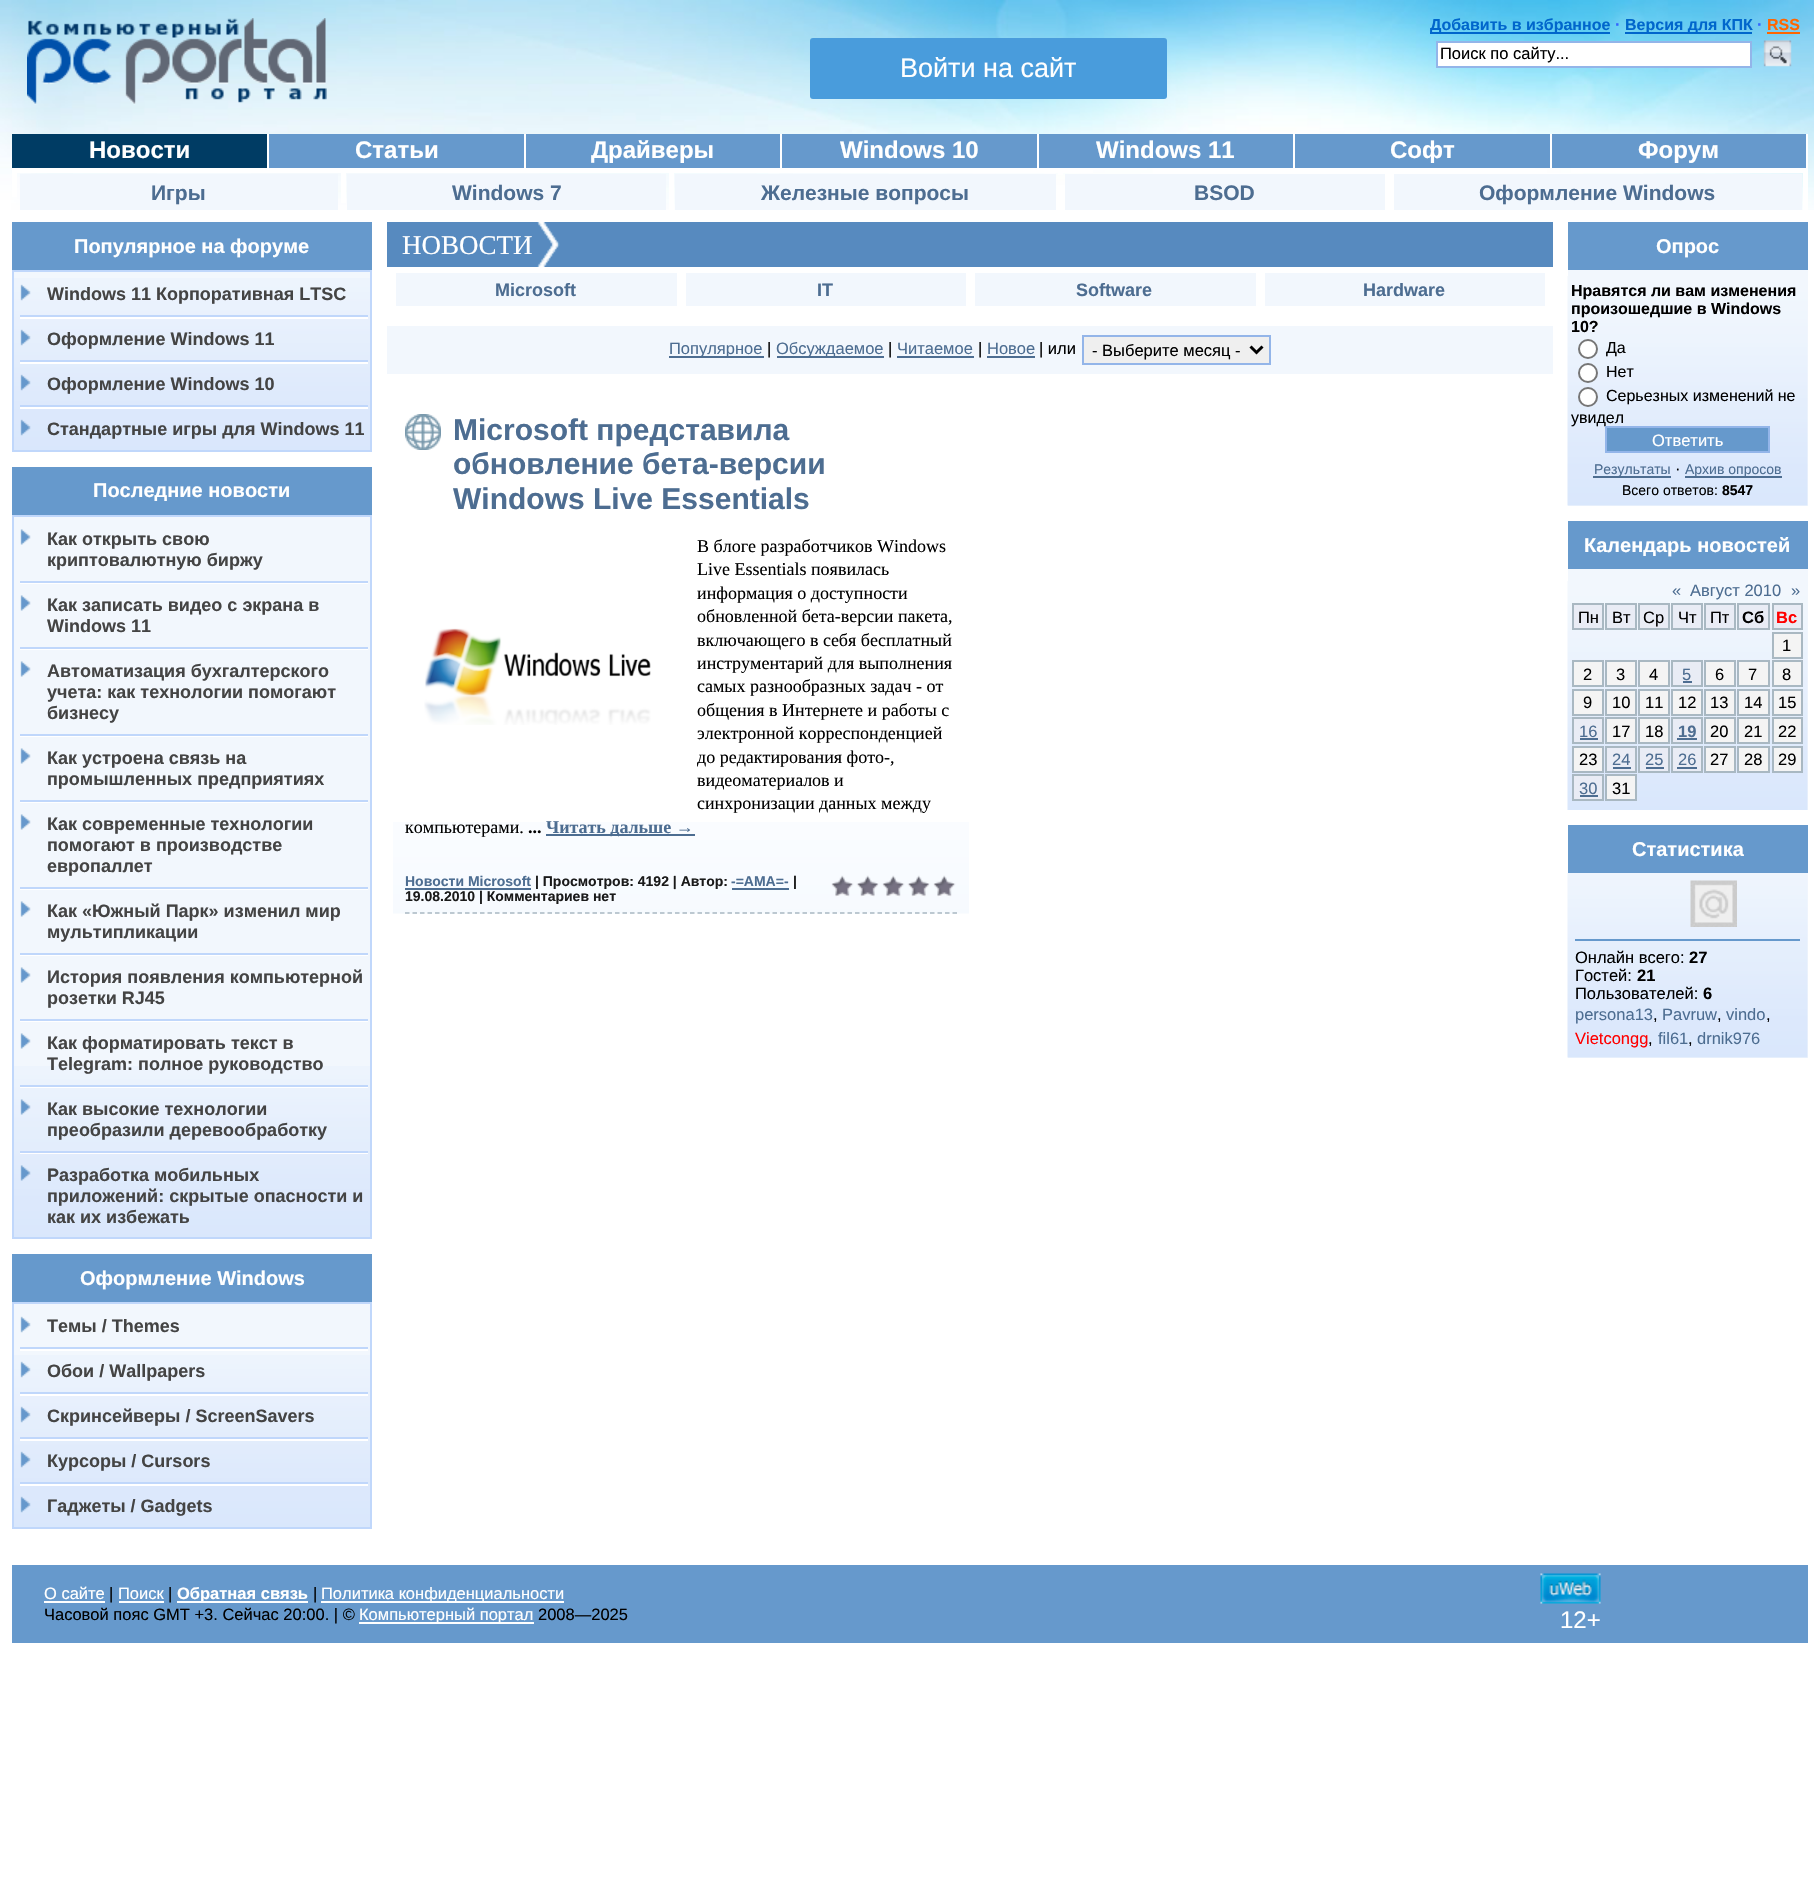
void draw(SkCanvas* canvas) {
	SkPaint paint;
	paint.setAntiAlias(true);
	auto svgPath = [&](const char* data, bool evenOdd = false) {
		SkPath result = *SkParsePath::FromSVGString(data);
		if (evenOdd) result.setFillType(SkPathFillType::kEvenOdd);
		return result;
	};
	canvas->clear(0xffffffff);
	canvas->drawImageRect(SkImages::DeferredFromEncodedData(SkData::MakeFromFileName("img1.png")), SkRect::MakeXYWH(0, 0, 1814, 210), SkSamplingOptions());
	canvas->drawImageRect(SkImages::DeferredFromEncodedData(SkData::MakeFromFileName("img2.png")), SkRect::MakeXYWH(27, 18, 300, 87), SkSamplingOptions());
	paint.setColor(0xff0066cc);
	canvas->drawRect(SkRect::MakeXYWH(1430, 32, 180, 2), paint);
	SkFont f1(fontMgr->matchFamilyStyle("Liberation Sans", SkFontStyle::Bold()), 16);
	f1.setSubpixel(true);
	canvas->drawString("Добавить в избранное", 1430, 30, f1, paint);
	SkFont f2(fontMgr->matchFamilyStyle("Liberation Sans", SkFontStyle::Bold()), 16.5);
	f2.setSubpixel(true);
	paint.setColor(0xff3366ff);
	canvas->drawString("·", 1615, 30, f2, paint);
	paint.setColor(0xff0066cc);
	canvas->drawRect(SkRect::MakeXYWH(1625, 32, 127, 2), paint);
	canvas->drawString("Версия для КПК", 1625, 30, f1, paint);
	paint.setColor(0xff3366ff);
	canvas->drawString("·", 1757, 30, f2, paint);
	paint.setColor(0xffff6600);
	canvas->drawString("RSS", 1767, 30, f1, paint);
	canvas->drawRect(SkRect::MakeXYWH(1767, 32, 33, 2), paint);
	paint.setColor(0xffffffff);
	canvas->drawRect(SkRect::MakeXYWH(1437, 42, 314, 25), paint);
	paint.setStroke(true);
	paint.setStrokeWidth(2);
	paint.setColor(0xff93b5e9);
	canvas->drawRect(SkRect::MakeXYWH(1437, 42, 314, 25), paint);
	SkFont f3(fontMgr->matchFamilyStyle("Liberation Sans", SkFontStyle::Normal()), 16.5);
	f3.setSubpixel(true);
	paint.setStroke(false);
	paint.setColor(0xff000000);
	canvas->drawString("Поиск по сайту...", 1440, 59, f3, paint);
	canvas->drawImageRect(SkImages::DeferredFromEncodedData(SkData::MakeFromFileName("img3.png")), SkRect::MakeXYWH(1763, 40, 29, 27), SkSamplingOptions());
	paint.setColor(0xff499cdc);
	canvas->drawRoundRect(SkRect::MakeXYWH(810, 38, 357, 61), 3, 3, paint);
	SkFont f4(fontMgr->matchFamilyStyle("Liberation Sans", SkFontStyle::Normal()), 27);
	f4.setSubpixel(true);
	paint.setColor(0xffffffff);
	canvas->drawString("Войти на сайт", 900, 77, f4, paint);
	canvas->drawRect(SkRect::MakeXYWH(1037, 168, 110, 2), paint);
	canvas->drawRect(SkRect::MakeXYWH(1037, 134, 2, 36), paint);
	canvas->drawRect(SkRect::MakeXYWH(780, 168, 258, 2), paint);
	canvas->drawRect(SkRect::MakeXYWH(780, 134, 2, 36), paint);
	canvas->drawRect(SkRect::MakeXYWH(524, 168, 258, 2), paint);
	canvas->drawRect(SkRect::MakeXYWH(524, 134, 2, 36), paint);
	canvas->drawRect(SkRect::MakeXYWH(267, 168, 258, 2), paint);
	canvas->drawRect(SkRect::MakeXYWH(267, 134, 2, 36), paint);
	canvas->drawRect(SkRect::MakeXYWH(12, 168, 257, 2), paint);
	paint.setColor(0xff003c64);
	canvas->drawRect(SkRect::MakeXYWH(12, 134, 255, 34), paint);
	SkFont f5(fontMgr->matchFamilyStyle("Liberation Sans", SkFontStyle::Bold()), 24);
	f5.setSubpixel(true);
	paint.setColor(0xffffffff);
	canvas->drawString("Новости", 89, 158, f5, paint);
	paint.setColor(0xff6699cc);
	canvas->drawRect(SkRect::MakeXYWH(269, 134, 255, 34), paint);
	paint.setColor(0xffffffff);
	canvas->drawString("Статьи", 355, 158, f5, paint);
	paint.setColor(0xff6699cc);
	canvas->drawRect(SkRect::MakeXYWH(526, 134, 254, 34), paint);
	paint.setColor(0xffffffff);
	canvas->drawString("Драйверы", 591, 158, f5, paint);
	paint.setColor(0xff6699cc);
	canvas->drawRect(SkRect::MakeXYWH(782, 134, 255, 34), paint);
	paint.setColor(0xffffffff);
	canvas->drawString("Windows 10", 840, 158, f5, paint);
	paint.setColor(0xff6699cc);
	canvas->drawRect(SkRect::MakeXYWH(1039, 134, 254, 34), paint);
	paint.setColor(0xffffffff);
	canvas->drawString("Windows 11", 1096, 158, f5, paint);
	canvas->drawRect(SkRect::MakeXYWH(1550, 134, 2, 36), paint);
	paint.setColor(0xff6699cc);
	canvas->drawRect(SkRect::MakeXYWH(1295, 134, 255, 34), paint);
	paint.setColor(0xffffffff);
	canvas->drawString("Софт", 1390, 158, f5, paint);
	canvas->drawRect(SkRect::MakeXYWH(1806, 134, 2, 36), paint);
	canvas->drawRect(SkRect::MakeXYWH(1571, 168, 237, 5), paint);
	paint.setColor(0xff6699cc);
	canvas->drawRect(SkRect::MakeXYWH(1552, 134, 254, 34), paint);
	paint.setColor(0xffffffff);
	canvas->drawString("Форум", 1638, 158, f5, paint);
	paint.setColor(0xfff2f7fd);
	canvas->drawRect(SkRect::MakeXYWH(20, 174, 318, 36), paint);
	paint.setColor(0xffffffff);
	canvas->drawRect(SkRect::MakeXYWH(14, 170, 1079, 3), paint);
	canvas->drawRect(SkRect::MakeXYWH(12, 170, 5, 27), paint);
	SkFont f6(fontMgr->matchFamilyStyle("Liberation Sans", SkFontStyle::Bold()), 21);
	f6.setSubpixel(true);
	paint.setColor(0xff4d6d91);
	canvas->drawString("Игры", 151, 200, f6, paint);
	paint.setColor(0xfff2f7fd);
	canvas->drawRect(SkRect::MakeXYWH(347, 174, 319, 36), paint);
	paint.setColor(0xffffffff);
	canvas->drawRect(SkRect::MakeXYWH(341, 170, 5, 33), paint);
	paint.setColor(0xff4d6d91);
	canvas->drawString("Windows 7", 452, 200, f6, paint);
	paint.setColor(0xfff2f7fd);
	canvas->drawRect(SkRect::MakeXYWH(675, 174, 381, 36), paint);
	paint.setColor(0xffffffff);
	canvas->drawRect(SkRect::MakeXYWH(669, 170, 5, 46), paint);
	paint.setColor(0xff4d6d91);
	canvas->drawString("Железные вопросы", 761, 200, f6, paint);
	paint.setColor(0xfff2f7fd);
	canvas->drawRect(SkRect::MakeXYWH(1065, 174, 320, 36), paint);
	paint.setColor(0xffffffff);
	canvas->drawRect(SkRect::MakeXYWH(1058, 170, 5, 5), paint);
	paint.setColor(0xff4d6d91);
	canvas->drawString("BSOD", 1194, 200, f6, paint);
	paint.setColor(0xfff2f7fd);
	canvas->drawRect(SkRect::MakeXYWH(1394, 174, 408, 36), paint);
	paint.setColor(0xffffffff);
	canvas->drawRect(SkRect::MakeXYWH(1803, 170, 5, 46), paint);
	paint.setColor(0xff4d6d91);
	canvas->drawString("Оформление Windows", 1479, 200, f6, paint);
	paint.setColor(0xff6699cc);
	canvas->drawRect(SkRect::MakeXYWH(12, 222, 360, 48), paint);
	SkFont f7(fontMgr->matchFamilyStyle("Liberation Sans", SkFontStyle::Bold()), 20);
	f7.setSubpixel(true);
	paint.setColor(0xffffffff);
	canvas->drawString("Популярное на форуме", 74, 253, f7, paint);
	paint.setColor(0xfff2f7fd);
	canvas->drawRect(SkRect::MakeXYWH(14, 272, 356, 6), paint);
	canvas->drawImageRect(SkImages::DeferredFromEncodedData(SkData::MakeFromFileName("img4.png")), SkRect::MakeXYWH(14, 278, 356, 172), SkSamplingOptions());
	paint.setStroke(true);
	paint.setColor(0xffc0d7fb);
	canvas->drawRect(SkRect::MakeXYWH(13, 271, 358, 180), paint);
	canvas->drawImageRect(SkImages::DeferredFromEncodedData(SkData::MakeFromFileName("img5.png")), SkRect::MakeXYWH(20, 284, 11, 17), SkSamplingOptions());
	paint.setStroke(false);
	paint.setColor(0xffffffff);
	canvas->drawRect(SkRect::MakeXYWH(20, 317, 348, 2), paint);
	SkFont f8(fontMgr->matchFamilyStyle("Liberation Sans", SkFontStyle::Bold()), 18);
	f8.setSubpixel(true);
	paint.setColor(0xff444444);
	canvas->drawString("Windows 11 Корпоративная LTSC", 47, 300, f8, paint);
	canvas->drawImageRect(SkImages::DeferredFromEncodedData(SkData::MakeFromFileName("img6.png")), SkRect::MakeXYWH(20, 329, 11, 17), SkSamplingOptions());
	paint.setColor(0xffc0d7fb);
	canvas->drawRect(SkRect::MakeXYWH(20, 315, 348, 2), paint);
	paint.setColor(0xffffffff);
	canvas->drawRect(SkRect::MakeXYWH(20, 362, 348, 2), paint);
	paint.setColor(0xff444444);
	canvas->drawString("Оформление Windows 11", 47, 345, f8, paint);
	canvas->drawImageRect(SkImages::DeferredFromEncodedData(SkData::MakeFromFileName("img7.png")), SkRect::MakeXYWH(20, 374, 11, 17), SkSamplingOptions());
	paint.setColor(0xffc0d7fb);
	canvas->drawRect(SkRect::MakeXYWH(20, 360, 348, 2), paint);
	paint.setColor(0xffffffff);
	canvas->drawRect(SkRect::MakeXYWH(20, 407, 348, 2), paint);
	paint.setColor(0xff444444);
	canvas->drawString("Оформление Windows 10", 47, 390, f8, paint);
	canvas->drawImageRect(SkImages::DeferredFromEncodedData(SkData::MakeFromFileName("img8.png")), SkRect::MakeXYWH(20, 419, 11, 17), SkSamplingOptions());
	paint.setColor(0xffc0d7fb);
	canvas->drawRect(SkRect::MakeXYWH(20, 405, 348, 2), paint);
	paint.setColor(0xff444444);
	canvas->drawString("Стандартные игры для Windows 11", 47, 435, f8, paint);
	paint.setColor(0xff6699cc);
	canvas->drawRect(SkRect::MakeXYWH(12, 467, 360, 48), paint);
	paint.setColor(0xffffffff);
	canvas->drawString("Последние новости", 93, 497, f7, paint);
	paint.setColor(0xfff2f7fd);
	canvas->drawRect(SkRect::MakeXYWH(14, 517, 356, 549), paint);
	canvas->drawImageRect(SkImages::DeferredFromEncodedData(SkData::MakeFromFileName("img9.png")), SkRect::MakeXYWH(14, 1066, 356, 171), SkSamplingOptions());
	paint.setStroke(true);
	paint.setColor(0xffc0d7fb);
	canvas->drawRect(SkRect::MakeXYWH(13, 516, 358, 722), paint);
	canvas->drawImageRect(SkImages::DeferredFromEncodedData(SkData::MakeFromFileName("img10.png")), SkRect::MakeXYWH(20, 529, 11, 16), SkSamplingOptions());
	paint.setStroke(false);
	paint.setColor(0xffffffff);
	canvas->drawRect(SkRect::MakeXYWH(20, 583, 348, 1), paint);
	paint.setColor(0xff444444);
	canvas->drawString("Как открыть свою", 47, 545, f8, paint);
	canvas->drawString("криптовалютную биржу", 47, 566, f8, paint);
	canvas->drawImageRect(SkImages::DeferredFromEncodedData(SkData::MakeFromFileName("img10.png")), SkRect::MakeXYWH(20, 595, 11, 16), SkSamplingOptions());
	paint.setColor(0xffc0d7fb);
	canvas->drawRect(SkRect::MakeXYWH(20, 581, 348, 2), paint);
	paint.setColor(0xffffffff);
	canvas->drawRect(SkRect::MakeXYWH(20, 649, 348, 1), paint);
	paint.setColor(0xff444444);
	canvas->drawString("Как записать видео с экрана в", 47, 611, f8, paint);
	canvas->drawString("Windows 11", 47, 632, f8, paint);
	canvas->drawImageRect(SkImages::DeferredFromEncodedData(SkData::MakeFromFileName("img10.png")), SkRect::MakeXYWH(20, 661, 11, 16), SkSamplingOptions());
	paint.setColor(0xffc0d7fb);
	canvas->drawRect(SkRect::MakeXYWH(20, 647, 348, 2), paint);
	paint.setColor(0xffffffff);
	canvas->drawRect(SkRect::MakeXYWH(20, 736, 348, 1), paint);
	paint.setColor(0xff444444);
	canvas->drawString("Автоматизация бухгалтерского", 47, 677, f8, paint);
	canvas->drawString("учета: как технологии помогают", 47, 698, f8, paint);
	canvas->drawString("бизнесу", 47, 719, f8, paint);
	canvas->drawImageRect(SkImages::DeferredFromEncodedData(SkData::MakeFromFileName("img10.png")), SkRect::MakeXYWH(20, 748, 11, 16), SkSamplingOptions());
	paint.setColor(0xffc0d7fb);
	canvas->drawRect(SkRect::MakeXYWH(20, 734, 348, 2), paint);
	paint.setColor(0xffffffff);
	canvas->drawRect(SkRect::MakeXYWH(20, 802, 348, 1), paint);
	paint.setColor(0xff444444);
	canvas->drawString("Как устроена связь на", 47, 764, f8, paint);
	canvas->drawString("промышленных предприятиях", 47, 785, f8, paint);
	canvas->drawImageRect(SkImages::DeferredFromEncodedData(SkData::MakeFromFileName("img10.png")), SkRect::MakeXYWH(20, 814, 11, 16), SkSamplingOptions());
	paint.setColor(0xffc0d7fb);
	canvas->drawRect(SkRect::MakeXYWH(20, 800, 348, 2), paint);
	paint.setColor(0xffffffff);
	canvas->drawRect(SkRect::MakeXYWH(20, 889, 348, 1), paint);
	paint.setColor(0xff444444);
	canvas->drawString("Как современные технологии", 47, 830, f8, paint);
	canvas->drawString("помогают в производстве", 47, 851, f8, paint);
	canvas->drawString("европаллет", 47, 872, f8, paint);
	canvas->drawImageRect(SkImages::DeferredFromEncodedData(SkData::MakeFromFileName("img10.png")), SkRect::MakeXYWH(20, 901, 11, 16), SkSamplingOptions());
	paint.setColor(0xffc0d7fb);
	canvas->drawRect(SkRect::MakeXYWH(20, 887, 348, 2), paint);
	paint.setColor(0xffffffff);
	canvas->drawRect(SkRect::MakeXYWH(20, 955, 348, 1), paint);
	paint.setColor(0xff444444);
	canvas->drawString("Как «Южный Парк» изменил мир", 47, 917, f8, paint);
	canvas->drawString("мультипликации", 47, 938, f8, paint);
	canvas->drawImageRect(SkImages::DeferredFromEncodedData(SkData::MakeFromFileName("img10.png")), SkRect::MakeXYWH(20, 967, 11, 16), SkSamplingOptions());
	paint.setColor(0xffc0d7fb);
	canvas->drawRect(SkRect::MakeXYWH(20, 953, 348, 2), paint);
	paint.setColor(0xffffffff);
	canvas->drawRect(SkRect::MakeXYWH(20, 1021, 348, 1), paint);
	paint.setColor(0xff444444);
	canvas->drawString("История появления компьютерной", 47, 983, f8, paint);
	canvas->drawString("розетки RJ45", 47, 1004, f8, paint);
	canvas->drawImageRect(SkImages::DeferredFromEncodedData(SkData::MakeFromFileName("img10.png")), SkRect::MakeXYWH(20, 1033, 11, 16), SkSamplingOptions());
	paint.setColor(0xffc0d7fb);
	canvas->drawRect(SkRect::MakeXYWH(20, 1019, 348, 2), paint);
	paint.setColor(0xffffffff);
	canvas->drawRect(SkRect::MakeXYWH(20, 1087, 348, 1), paint);
	paint.setColor(0xff444444);
	canvas->drawString("Как форматировать текст в", 47, 1049, f8, paint);
	canvas->drawString("Telegram: полное руководство", 47, 1070, f8, paint);
	canvas->drawImageRect(SkImages::DeferredFromEncodedData(SkData::MakeFromFileName("img11.png")), SkRect::MakeXYWH(20, 1099, 11, 16), SkSamplingOptions());
	paint.setColor(0xffc0d7fb);
	canvas->drawRect(SkRect::MakeXYWH(20, 1085, 348, 2), paint);
	paint.setColor(0xffffffff);
	canvas->drawRect(SkRect::MakeXYWH(20, 1153, 348, 1), paint);
	paint.setColor(0xff444444);
	canvas->drawString("Как высокие технологии", 47, 1115, f8, paint);
	canvas->drawString("преобразили деревообработку", 47, 1136, f8, paint);
	canvas->drawImageRect(SkImages::DeferredFromEncodedData(SkData::MakeFromFileName("img12.png")), SkRect::MakeXYWH(20, 1165, 11, 16), SkSamplingOptions());
	paint.setColor(0xffc0d7fb);
	canvas->drawRect(SkRect::MakeXYWH(20, 1151, 348, 2), paint);
	paint.setColor(0xff444444);
	canvas->drawString("Разработка мобильных", 47, 1181, f8, paint);
	canvas->drawString("приложений: скрытые опасности и", 47, 1202, f8, paint);
	canvas->drawString("как их избежать", 47, 1223, f8, paint);
	paint.setColor(0xff6699cc);
	canvas->drawRect(SkRect::MakeXYWH(12, 1254, 360, 48), paint);
	paint.setColor(0xffffffff);
	canvas->drawString("Оформление Windows", 80, 1285, f7, paint);
	paint.setColor(0xfff2f7fd);
	canvas->drawRect(SkRect::MakeXYWH(14, 1304, 356, 51), paint);
	canvas->drawImageRect(SkImages::DeferredFromEncodedData(SkData::MakeFromFileName("img4.png")), SkRect::MakeXYWH(14, 1355, 356, 172), SkSamplingOptions());
	paint.setStroke(true);
	paint.setColor(0xffc0d7fb);
	canvas->drawRect(SkRect::MakeXYWH(13, 1303, 358, 225), paint);
	canvas->drawImageRect(SkImages::DeferredFromEncodedData(SkData::MakeFromFileName("img13.png")), SkRect::MakeXYWH(20, 1316, 11, 17), SkSamplingOptions());
	paint.setStroke(false);
	paint.setColor(0xffffffff);
	canvas->drawRect(SkRect::MakeXYWH(20, 1349, 348, 2), paint);
	paint.setColor(0xff444444);
	canvas->drawString("Темы / Themes", 47, 1332, f8, paint);
	canvas->drawImageRect(SkImages::DeferredFromEncodedData(SkData::MakeFromFileName("img5.png")), SkRect::MakeXYWH(20, 1361, 11, 17), SkSamplingOptions());
	paint.setColor(0xffc0d7fb);
	canvas->drawRect(SkRect::MakeXYWH(20, 1347, 348, 2), paint);
	paint.setColor(0xffffffff);
	canvas->drawRect(SkRect::MakeXYWH(20, 1394, 348, 2), paint);
	paint.setColor(0xff444444);
	canvas->drawString("Обои / Wallpapers", 47, 1377, f8, paint);
	canvas->drawImageRect(SkImages::DeferredFromEncodedData(SkData::MakeFromFileName("img6.png")), SkRect::MakeXYWH(20, 1406, 11, 17), SkSamplingOptions());
	paint.setColor(0xffc0d7fb);
	canvas->drawRect(SkRect::MakeXYWH(20, 1392, 348, 2), paint);
	paint.setColor(0xffffffff);
	canvas->drawRect(SkRect::MakeXYWH(20, 1439, 348, 2), paint);
	paint.setColor(0xff444444);
	canvas->drawString("Скринсейверы / ScreenSavers", 47, 1422, f8, paint);
	canvas->drawImageRect(SkImages::DeferredFromEncodedData(SkData::MakeFromFileName("img7.png")), SkRect::MakeXYWH(20, 1451, 11, 17), SkSamplingOptions());
	paint.setColor(0xffc0d7fb);
	canvas->drawRect(SkRect::MakeXYWH(20, 1437, 348, 2), paint);
	paint.setColor(0xffffffff);
	canvas->drawRect(SkRect::MakeXYWH(20, 1484, 348, 2), paint);
	paint.setColor(0xff444444);
	canvas->drawString("Курсоры / Cursors", 47, 1467, f8, paint);
	canvas->drawImageRect(SkImages::DeferredFromEncodedData(SkData::MakeFromFileName("img8.png")), SkRect::MakeXYWH(20, 1496, 11, 17), SkSamplingOptions());
	paint.setColor(0xffc0d7fb);
	canvas->drawRect(SkRect::MakeXYWH(20, 1482, 348, 2), paint);
	paint.setColor(0xff444444);
	canvas->drawString("Гаджеты / Gadgets", 47, 1512, f8, paint);
	paint.setColor(0xff578abf);
	canvas->drawRect(SkRect::MakeXYWH(387, 222, 1166, 45), paint);
	canvas->drawImageRect(SkImages::DeferredFromEncodedData(SkData::MakeFromFileName("img14.png")), SkRect::MakeXYWH(537, 222, 23, 45), SkSamplingOptions());
	SkFont f9(fontMgr->matchFamilyStyle("Liberation Serif", SkFontStyle::Normal()), 27);
	f9.setSubpixel(true);
	paint.setColor(0xffffffff);
	canvas->drawString("НОВОСТИ", 402, 254, f9, paint);
	paint.setColor(0xfff2f7fd);
	canvas->drawRect(SkRect::MakeXYWH(396, 273, 281, 33), paint);
	paint.setColor(0xff4d6d91);
	canvas->drawString("Microsoft", 495, 296, f8, paint);
	paint.setColor(0xfff2f7fd);
	canvas->drawRect(SkRect::MakeXYWH(686, 273, 280, 33), paint);
	paint.setColor(0xff4d6d91);
	canvas->drawString("IT", 817, 296, f8, paint);
	paint.setColor(0xfff2f7fd);
	canvas->drawRect(SkRect::MakeXYWH(975, 273, 281, 33), paint);
	paint.setColor(0xff4d6d91);
	canvas->drawString("Software", 1076, 296, f8, paint);
	paint.setColor(0xfff2f7fd);
	canvas->drawRect(SkRect::MakeXYWH(1265, 273, 280, 33), paint);
	paint.setColor(0xff4d6d91);
	canvas->drawString("Hardware", 1363, 296, f8, paint);
	paint.setColor(0xfff2f7fd);
	canvas->drawRect(SkRect::MakeXYWH(387, 326, 1166, 48), paint);
	paint.setColor(0xff4d6d91);
	canvas->drawRect(SkRect::MakeXYWH(669, 356, 95, 2), paint);
	canvas->drawString("Популярное", 669, 354, f3, paint);
	paint.setColor(0xff000000);
	canvas->drawString("|", 767, 354, f3, paint);
	paint.setColor(0xff4d6d91);
	canvas->drawRect(SkRect::MakeXYWH(777, 356, 107, 2), paint);
	canvas->drawString("Обсуждаемое", 776, 354, f3, paint);
	paint.setColor(0xff000000);
	canvas->drawString("|", 888, 354, f3, paint);
	paint.setColor(0xff4d6d91);
	canvas->drawString("Читаемое", 897, 354, f3, paint);
	canvas->drawRect(SkRect::MakeXYWH(897, 356, 77, 2), paint);
	paint.setColor(0xff000000);
	canvas->drawString("|", 978, 354, f3, paint);
	paint.setColor(0xff4d6d91);
	canvas->drawString("Новое", 987, 354, f3, paint);
	canvas->drawRect(SkRect::MakeXYWH(987, 356, 48, 2), paint);
	paint.setColor(0xff000000);
	canvas->drawString("| или", 1039, 354, f3, paint);
	paint.setColor(0xffefefef);
	canvas->drawRect(SkRect::MakeXYWH(1083, 336, 187, 28), paint);
	paint.setStroke(true);
	paint.setColor(0xff93b5e9);
	canvas->drawRect(SkRect::MakeXYWH(1083, 336, 187, 28), paint);
	paint.setStrokeWidth(3);
	paint.setColor(0xff000000);
	canvas->drawPath(svgPath("M1250.5 346.5L1256.5 352.5L1262.5 346.5"), paint);
	paint.setStroke(false);
	canvas->drawString("- Выберите месяц -", 1092, 356, f3, paint);
	canvas->drawImageRect(SkImages::DeferredFromEncodedData(SkData::MakeFromFileName("img15.png")), SkRect::MakeXYWH(393, 822, 576, 92), SkSamplingOptions());
	canvas->drawImageRect(SkImages::DeferredFromEncodedData(SkData::MakeFromFileName("img16.png")), SkRect::MakeXYWH(405, 414, 36, 36), SkSamplingOptions());
	SkFont f10(fontMgr->matchFamilyStyle("Liberation Sans", SkFontStyle::Bold()), 30);
	f10.setSubpixel(true);
	paint.setColor(0xff4d6d91);
	canvas->drawString("Microsoft представила", 453, 440, f10, paint);
	canvas->drawString("обновление бета-версии", 453, 474, f10, paint);
	canvas->drawString("Windows Live Essentials", 453, 509, f10, paint);
	SkFont f11(fontMgr->matchFamilyStyle("Liberation Serif", SkFontStyle::Normal()), 18);
	f11.setSubpixel(true);
	paint.setColor(0xff000000);
	canvas->drawString("В блоге разработчиков Windows", 697, 552, f11, paint);
	canvas->drawString("Live Essentials появилась", 697, 575, f11, paint);
	canvas->drawString("информация о доступности", 697, 599, f11, paint);
	canvas->drawString("обновленной бета-версии пакета,", 697, 622, f11, paint);
	canvas->drawString("включающего в себя бесплатный", 697, 646, f11, paint);
	canvas->drawString("инструментарий для выполнения", 697, 669, f11, paint);
	canvas->drawString("самых разнообразных задач - от", 697, 692, f11, paint);
	canvas->drawString("общения в Интернете и работы с", 697, 716, f11, paint);
	canvas->drawString("электронной корреспонденцией", 697, 739, f11, paint);
	canvas->drawString("до редактирования фото-,", 697, 763, f11, paint);
	canvas->drawString("видеоматериалов и", 697, 786, f11, paint);
	canvas->drawString("синхронизации данных между", 697, 809, f11, paint);
	canvas->drawString("компьютерами.", 405, 833, f11, paint);
	SkFont f12(fontMgr->matchFamilyStyle("Liberation Serif", SkFontStyle::Bold()), 18);
	f12.setSubpixel(true);
	canvas->drawString("...", 528, 833, f12, paint);
	paint.setColor(0xff4d6d91);
	canvas->drawRect(SkRect::MakeXYWH(546, 834, 149, 2), paint);
	canvas->drawString("Читать дальше →", 546, 833, f12, paint);
	canvas->drawImageRect(SkImages::DeferredFromEncodedData(SkData::MakeFromFileName("img17.png")), SkRect::MakeXYWH(424, 628, 227, 97), SkSamplingOptions());
	paint.setStroke(true);
	paint.setStrokeWidth(1.5);
	paint.setColor(0xffa9b8c2);
	paint.setPathEffect(SkDashPathEffect::Make({{4.5f, 3}}, 0));
	canvas->drawPath(svgPath("M405 913H957"), paint);
	paint.setPathEffect(nullptr);
	SkFont f13(fontMgr->matchFamilyStyle("Liberation Sans", SkFontStyle::Bold()), 14);
	f13.setSubpixel(true);
	paint.setStroke(false);
	paint.setColor(0xff4d6d91);
	canvas->drawString("Новости Microsoft", 405, 886, f13, paint);
	canvas->drawRect(SkRect::MakeXYWH(405, 888, 126, 2), paint);
	paint.setColor(0xff1a1a1a);
	canvas->drawString("| Просмотров: 4192 | Автор:", 535, 886, f13, paint);
	paint.setColor(0xff4d6d91);
	canvas->drawString("-=AMA=-", 731, 886, f13, paint);
	canvas->drawRect(SkRect::MakeXYWH(732, 888, 57, 2), paint);
	paint.setColor(0xff1a1a1a);
	canvas->drawString("|", 793, 886, f13, paint);
	canvas->drawImageRect(SkImages::DeferredFromEncodedData(SkData::MakeFromFileName("img18.png")), SkRect::MakeXYWH(831, 875, 125, 22), SkSamplingOptions());
	canvas->drawString("19.08.2010 | Комментариев нет", 405, 901, f13, paint);
	paint.setColor(0xff6699cc);
	canvas->drawRect(SkRect::MakeXYWH(1568, 222, 240, 48), paint);
	paint.setColor(0xffffffff);
	canvas->drawString("Опрос", 1656, 253, f7, paint);
	paint.setColor(0xfff2f7fd);
	canvas->drawRect(SkRect::MakeXYWH(1568, 270, 240, 236), paint);
	canvas->drawImageRect(SkImages::DeferredFromEncodedData(SkData::MakeFromFileName("img19.png")), SkRect::MakeXYWH(1567, 276, 241, 230), SkSamplingOptions());
	paint.setColor(0xff000000);
	canvas->drawString("Нравятся ли вам изменения", 1571, 296, f1, paint);
	canvas->drawString("произошедшие в Windows", 1571, 314, f1, paint);
	canvas->drawString("10?", 1571, 332, f1, paint);
	paint.setColor(0xffffffff);
	canvas->drawCircle(1588, 349, 9, paint);
	paint.setStroke(true);
	paint.setStrokeWidth(2);
	paint.setColor(0xff767676);
	canvas->drawCircle(1588, 349, 9, paint);
	SkFont f14(fontMgr->matchFamilyStyle("Liberation Sans", SkFontStyle::Normal()), 16);
	f14.setSubpixel(true);
	paint.setStroke(false);
	paint.setColor(0xff000000);
	canvas->drawString("Да", 1606, 353, f14, paint);
	paint.setColor(0xffffffff);
	canvas->drawCircle(1588, 373, 9, paint);
	paint.setStroke(true);
	paint.setColor(0xff767676);
	canvas->drawCircle(1588, 373, 9, paint);
	paint.setStroke(false);
	paint.setColor(0xff000000);
	canvas->drawString("Нет", 1606, 377, f14, paint);
	paint.setColor(0xffffffff);
	canvas->drawCircle(1588, 397, 9, paint);
	paint.setStroke(true);
	paint.setColor(0xff767676);
	canvas->drawCircle(1588, 397, 9, paint);
	paint.setStroke(false);
	paint.setColor(0xff000000);
	canvas->drawString("Серьезных изменений не", 1606, 401, f14, paint);
	canvas->drawString("увидел", 1571, 423, f14, paint);
	paint.setColor(0xff6699cc);
	canvas->drawRect(SkRect::MakeXYWH(1606, 427, 163, 25), paint);
	paint.setStroke(true);
	paint.setColor(0xff93b5e9);
	canvas->drawRect(SkRect::MakeXYWH(1606, 427, 163, 25), paint);
	paint.setStroke(false);
	paint.setColor(0xffffffff);
	canvas->drawString("Ответить", 1652, 446, f3, paint);
	paint.setColor(0xff4d6d91);
	canvas->drawRect(SkRect::MakeXYWH(1593, 476, 78, 2), paint);
	SkFont f15(fontMgr->matchFamilyStyle("Liberation Sans", SkFontStyle::Normal()), 14);
	f15.setSubpixel(true);
	canvas->drawString("Результаты", 1594, 474, f15, paint);
	paint.setColor(0xff000000);
	canvas->drawString("·", 1675, 474, f3, paint);
	paint.setColor(0xff4d6d91);
	canvas->drawRect(SkRect::MakeXYWH(1685, 476, 97, 2), paint);
	canvas->drawString("Архив опросов", 1685, 474, f15, paint);
	paint.setColor(0xff000000);
	canvas->drawString("Всего ответов:", 1622, 495, f15, paint);
	canvas->drawString("8547", 1722, 495, f13, paint);
	paint.setColor(0xff6699cc);
	canvas->drawRect(SkRect::MakeXYWH(1568, 521, 240, 48), paint);
	paint.setColor(0xffffffff);
	canvas->drawString("Календарь новостей", 1584, 552, f7, paint);
	paint.setColor(0xfff2f7fd);
	canvas->drawRect(SkRect::MakeXYWH(1568, 569, 240, 241), paint);
	canvas->drawImageRect(SkImages::DeferredFromEncodedData(SkData::MakeFromFileName("img20.png")), SkRect::MakeXYWH(1567, 581, 241, 229), SkSamplingOptions());
	paint.setColor(0xff4d6d91);
	canvas->drawString("«", 1672, 596, f3, paint);
	canvas->drawString("Август 2010", 1690, 596, f3, paint);
	canvas->drawString("»", 1791, 596, f3, paint);
	paint.setColor(0xffe9ecf5);
	canvas->drawRect(SkRect::MakeXYWH(1573, 604, 30, 25), paint);
	paint.setStroke(true);
	paint.setColor(0xffa9b8c2);
	canvas->drawRect(SkRect::MakeXYWH(1573, 604, 30, 25), paint);
	paint.setStroke(false);
	paint.setColor(0xff000000);
	canvas->drawString("Пн", 1578, 623, f3, paint);
	paint.setColor(0xffe9ecf5);
	canvas->drawRect(SkRect::MakeXYWH(1606, 604, 30, 25), paint);
	paint.setStroke(true);
	paint.setColor(0xffa9b8c2);
	canvas->drawRect(SkRect::MakeXYWH(1606, 604, 30, 25), paint);
	paint.setStroke(false);
	paint.setColor(0xff000000);
	canvas->drawString("Вт", 1612, 623, f3, paint);
	paint.setColor(0xffe9ecf5);
	canvas->drawRect(SkRect::MakeXYWH(1639, 604, 30, 25), paint);
	paint.setStroke(true);
	paint.setColor(0xffa9b8c2);
	canvas->drawRect(SkRect::MakeXYWH(1639, 604, 30, 25), paint);
	paint.setStroke(false);
	paint.setColor(0xff000000);
	canvas->drawString("Ср", 1643, 623, f3, paint);
	paint.setColor(0xffe9ecf5);
	canvas->drawRect(SkRect::MakeXYWH(1672, 604, 30, 25), paint);
	paint.setStroke(true);
	paint.setColor(0xffa9b8c2);
	canvas->drawRect(SkRect::MakeXYWH(1672, 604, 30, 25), paint);
	paint.setStroke(false);
	paint.setColor(0xff000000);
	canvas->drawString("Чт", 1678, 623, f3, paint);
	paint.setColor(0xffe9ecf5);
	canvas->drawRect(SkRect::MakeXYWH(1705, 604, 30, 25), paint);
	paint.setStroke(true);
	paint.setColor(0xffa9b8c2);
	canvas->drawRect(SkRect::MakeXYWH(1705, 604, 30, 25), paint);
	paint.setStroke(false);
	paint.setColor(0xff000000);
	canvas->drawString("Пт", 1710, 623, f3, paint);
	paint.setColor(0xffe9ecf5);
	canvas->drawRect(SkRect::MakeXYWH(1738, 604, 31, 25), paint);
	paint.setStroke(true);
	paint.setColor(0xffa9b8c2);
	canvas->drawRect(SkRect::MakeXYWH(1738, 604, 31, 25), paint);
	paint.setStroke(false);
	paint.setColor(0xff000000);
	canvas->drawString("Сб", 1742, 623, f2, paint);
	paint.setColor(0xffe9ecf5);
	canvas->drawRect(SkRect::MakeXYWH(1773, 604, 29, 25), paint);
	paint.setStroke(true);
	paint.setColor(0xffa9b8c2);
	canvas->drawRect(SkRect::MakeXYWH(1773, 604, 29, 25), paint);
	paint.setStroke(false);
	paint.setColor(0xffff0000);
	canvas->drawString("Вс", 1776, 623, f2, paint);
	paint.setColor(0xfff4f4f4);
	canvas->drawRect(SkRect::MakeXYWH(1773, 633, 29, 25), paint);
	paint.setStroke(true);
	paint.setColor(0xffa9b8c2);
	canvas->drawRect(SkRect::MakeXYWH(1773, 633, 29, 25), paint);
	paint.setStroke(false);
	paint.setColor(0xff000000);
	canvas->drawString("1", 1782, 651, f3, paint);
	paint.setColor(0xfff4f4f4);
	canvas->drawRect(SkRect::MakeXYWH(1573, 661, 30, 25), paint);
	paint.setStroke(true);
	paint.setColor(0xffa9b8c2);
	canvas->drawRect(SkRect::MakeXYWH(1573, 661, 30, 25), paint);
	paint.setStroke(false);
	paint.setColor(0xff000000);
	canvas->drawString("2", 1583, 680, f3, paint);
	paint.setColor(0xfff4f4f4);
	canvas->drawRect(SkRect::MakeXYWH(1606, 661, 30, 25), paint);
	paint.setStroke(true);
	paint.setColor(0xffa9b8c2);
	canvas->drawRect(SkRect::MakeXYWH(1606, 661, 30, 25), paint);
	paint.setStroke(false);
	paint.setColor(0xff000000);
	canvas->drawString("3", 1616, 680, f3, paint);
	paint.setColor(0xfff4f4f4);
	canvas->drawRect(SkRect::MakeXYWH(1639, 661, 30, 25), paint);
	paint.setStroke(true);
	paint.setColor(0xffa9b8c2);
	canvas->drawRect(SkRect::MakeXYWH(1639, 661, 30, 25), paint);
	paint.setStroke(false);
	paint.setColor(0xff000000);
	canvas->drawString("4", 1649, 680, f3, paint);
	paint.setColor(0xffe9ecf5);
	canvas->drawRect(SkRect::MakeXYWH(1672, 661, 30, 25), paint);
	paint.setStroke(true);
	paint.setColor(0xffa9b8c2);
	canvas->drawRect(SkRect::MakeXYWH(1672, 661, 30, 25), paint);
	paint.setStroke(false);
	paint.setColor(0xff4d6d91);
	canvas->drawString("5", 1682, 680, f3, paint);
	canvas->drawRect(SkRect::MakeXYWH(1683, 681, 9, 2), paint);
	paint.setColor(0xfff4f4f4);
	canvas->drawRect(SkRect::MakeXYWH(1705, 661, 30, 25), paint);
	paint.setStroke(true);
	paint.setColor(0xffa9b8c2);
	canvas->drawRect(SkRect::MakeXYWH(1705, 661, 30, 25), paint);
	paint.setStroke(false);
	paint.setColor(0xff000000);
	canvas->drawString("6", 1715, 680, f3, paint);
	paint.setColor(0xfff4f4f4);
	canvas->drawRect(SkRect::MakeXYWH(1738, 661, 31, 25), paint);
	paint.setStroke(true);
	paint.setColor(0xffa9b8c2);
	canvas->drawRect(SkRect::MakeXYWH(1738, 661, 31, 25), paint);
	paint.setStroke(false);
	paint.setColor(0xff000000);
	canvas->drawString("7", 1748, 680, f3, paint);
	paint.setColor(0xfff4f4f4);
	canvas->drawRect(SkRect::MakeXYWH(1773, 661, 29, 25), paint);
	paint.setStroke(true);
	paint.setColor(0xffa9b8c2);
	canvas->drawRect(SkRect::MakeXYWH(1773, 661, 29, 25), paint);
	paint.setStroke(false);
	paint.setColor(0xff000000);
	canvas->drawString("8", 1782, 680, f3, paint);
	paint.setColor(0xfff4f4f4);
	canvas->drawRect(SkRect::MakeXYWH(1573, 690, 30, 25), paint);
	paint.setStroke(true);
	paint.setColor(0xffa9b8c2);
	canvas->drawRect(SkRect::MakeXYWH(1573, 690, 30, 25), paint);
	paint.setStroke(false);
	paint.setColor(0xff000000);
	canvas->drawString("9", 1583, 708, f3, paint);
	paint.setColor(0xfff4f4f4);
	canvas->drawRect(SkRect::MakeXYWH(1606, 690, 30, 25), paint);
	paint.setStroke(true);
	paint.setColor(0xffa9b8c2);
	canvas->drawRect(SkRect::MakeXYWH(1606, 690, 30, 25), paint);
	paint.setStroke(false);
	paint.setColor(0xff000000);
	canvas->drawString("10", 1612, 708, f3, paint);
	paint.setColor(0xfff4f4f4);
	canvas->drawRect(SkRect::MakeXYWH(1639, 690, 30, 25), paint);
	paint.setStroke(true);
	paint.setColor(0xffa9b8c2);
	canvas->drawRect(SkRect::MakeXYWH(1639, 690, 30, 25), paint);
	paint.setStroke(false);
	paint.setColor(0xff000000);
	canvas->drawString("11", 1645, 708, f3, paint);
	paint.setColor(0xfff4f4f4);
	canvas->drawRect(SkRect::MakeXYWH(1672, 690, 30, 25), paint);
	paint.setStroke(true);
	paint.setColor(0xffa9b8c2);
	canvas->drawRect(SkRect::MakeXYWH(1672, 690, 30, 25), paint);
	paint.setStroke(false);
	paint.setColor(0xff000000);
	canvas->drawString("12", 1678, 708, f3, paint);
	paint.setColor(0xfff4f4f4);
	canvas->drawRect(SkRect::MakeXYWH(1705, 690, 30, 25), paint);
	paint.setStroke(true);
	paint.setColor(0xffa9b8c2);
	canvas->drawRect(SkRect::MakeXYWH(1705, 690, 30, 25), paint);
	paint.setStroke(false);
	paint.setColor(0xff000000);
	canvas->drawString("13", 1710, 708, f3, paint);
	paint.setColor(0xfff4f4f4);
	canvas->drawRect(SkRect::MakeXYWH(1738, 690, 31, 25), paint);
	paint.setStroke(true);
	paint.setColor(0xffa9b8c2);
	canvas->drawRect(SkRect::MakeXYWH(1738, 690, 31, 25), paint);
	paint.setStroke(false);
	paint.setColor(0xff000000);
	canvas->drawString("14", 1744, 708, f3, paint);
	paint.setColor(0xfff4f4f4);
	canvas->drawRect(SkRect::MakeXYWH(1773, 690, 29, 25), paint);
	paint.setStroke(true);
	paint.setColor(0xffa9b8c2);
	canvas->drawRect(SkRect::MakeXYWH(1773, 690, 29, 25), paint);
	paint.setStroke(false);
	paint.setColor(0xff000000);
	canvas->drawString("15", 1778, 708, f3, paint);
	paint.setColor(0xffe9ecf5);
	canvas->drawRect(SkRect::MakeXYWH(1573, 718, 30, 25), paint);
	paint.setStroke(true);
	paint.setColor(0xffa9b8c2);
	canvas->drawRect(SkRect::MakeXYWH(1573, 718, 30, 25), paint);
	paint.setStroke(false);
	paint.setColor(0xff4d6d91);
	canvas->drawString("16", 1579, 737, f3, paint);
	canvas->drawRect(SkRect::MakeXYWH(1580, 738, 18, 2), paint);
	paint.setColor(0xfff4f4f4);
	canvas->drawRect(SkRect::MakeXYWH(1606, 718, 30, 25), paint);
	paint.setStroke(true);
	paint.setColor(0xffa9b8c2);
	canvas->drawRect(SkRect::MakeXYWH(1606, 718, 30, 25), paint);
	paint.setStroke(false);
	paint.setColor(0xff000000);
	canvas->drawString("17", 1612, 737, f3, paint);
	paint.setColor(0xfff4f4f4);
	canvas->drawRect(SkRect::MakeXYWH(1639, 718, 30, 25), paint);
	paint.setStroke(true);
	paint.setColor(0xffa9b8c2);
	canvas->drawRect(SkRect::MakeXYWH(1639, 718, 30, 25), paint);
	paint.setStroke(false);
	paint.setColor(0xff000000);
	canvas->drawString("18", 1645, 737, f3, paint);
	paint.setColor(0xffe9ecf5);
	canvas->drawRect(SkRect::MakeXYWH(1672, 718, 30, 25), paint);
	paint.setStroke(true);
	paint.setColor(0xffa9b8c2);
	canvas->drawRect(SkRect::MakeXYWH(1672, 718, 30, 25), paint);
	paint.setStroke(false);
	paint.setColor(0xff4d6d91);
	canvas->drawString("19", 1678, 737, f2, paint);
	canvas->drawRect(SkRect::MakeXYWH(1677, 738, 20, 2), paint);
	paint.setColor(0xfff4f4f4);
	canvas->drawRect(SkRect::MakeXYWH(1705, 718, 30, 25), paint);
	paint.setStroke(true);
	paint.setColor(0xffa9b8c2);
	canvas->drawRect(SkRect::MakeXYWH(1705, 718, 30, 25), paint);
	paint.setStroke(false);
	paint.setColor(0xff000000);
	canvas->drawString("20", 1710, 737, f3, paint);
	paint.setColor(0xfff4f4f4);
	canvas->drawRect(SkRect::MakeXYWH(1738, 718, 31, 25), paint);
	paint.setStroke(true);
	paint.setColor(0xffa9b8c2);
	canvas->drawRect(SkRect::MakeXYWH(1738, 718, 31, 25), paint);
	paint.setStroke(false);
	paint.setColor(0xff000000);
	canvas->drawString("21", 1744, 737, f3, paint);
	paint.setColor(0xfff4f4f4);
	canvas->drawRect(SkRect::MakeXYWH(1773, 718, 29, 25), paint);
	paint.setStroke(true);
	paint.setColor(0xffa9b8c2);
	canvas->drawRect(SkRect::MakeXYWH(1773, 718, 29, 25), paint);
	paint.setStroke(false);
	paint.setColor(0xff000000);
	canvas->drawString("22", 1778, 737, f3, paint);
	paint.setColor(0xfff4f4f4);
	canvas->drawRect(SkRect::MakeXYWH(1573, 747, 30, 25), paint);
	paint.setStroke(true);
	paint.setColor(0xffa9b8c2);
	canvas->drawRect(SkRect::MakeXYWH(1573, 747, 30, 25), paint);
	paint.setStroke(false);
	paint.setColor(0xff000000);
	canvas->drawString("23", 1579, 765, f3, paint);
	paint.setColor(0xffe9ecf5);
	canvas->drawRect(SkRect::MakeXYWH(1606, 747, 30, 25), paint);
	paint.setStroke(true);
	paint.setColor(0xffa9b8c2);
	canvas->drawRect(SkRect::MakeXYWH(1606, 747, 30, 25), paint);
	paint.setStroke(false);
	paint.setColor(0xff4d6d91);
	canvas->drawString("24", 1612, 765, f3, paint);
	canvas->drawRect(SkRect::MakeXYWH(1613, 767, 18, 2), paint);
	paint.setColor(0xffe9ecf5);
	canvas->drawRect(SkRect::MakeXYWH(1639, 747, 30, 25), paint);
	paint.setStroke(true);
	paint.setColor(0xffa9b8c2);
	canvas->drawRect(SkRect::MakeXYWH(1639, 747, 30, 25), paint);
	paint.setStroke(false);
	paint.setColor(0xff4d6d91);
	canvas->drawString("25", 1645, 765, f3, paint);
	canvas->drawRect(SkRect::MakeXYWH(1646, 767, 18, 2), paint);
	paint.setColor(0xffe9ecf5);
	canvas->drawRect(SkRect::MakeXYWH(1672, 747, 30, 25), paint);
	paint.setStroke(true);
	paint.setColor(0xffa9b8c2);
	canvas->drawRect(SkRect::MakeXYWH(1672, 747, 30, 25), paint);
	paint.setStroke(false);
	paint.setColor(0xff4d6d91);
	canvas->drawString("26", 1678, 765, f3, paint);
	canvas->drawRect(SkRect::MakeXYWH(1677, 767, 20, 2), paint);
	paint.setColor(0xfff4f4f4);
	canvas->drawRect(SkRect::MakeXYWH(1705, 747, 30, 25), paint);
	paint.setStroke(true);
	paint.setColor(0xffa9b8c2);
	canvas->drawRect(SkRect::MakeXYWH(1705, 747, 30, 25), paint);
	paint.setStroke(false);
	paint.setColor(0xff000000);
	canvas->drawString("27", 1710, 765, f3, paint);
	paint.setColor(0xfff4f4f4);
	canvas->drawRect(SkRect::MakeXYWH(1738, 747, 31, 25), paint);
	paint.setStroke(true);
	paint.setColor(0xffa9b8c2);
	canvas->drawRect(SkRect::MakeXYWH(1738, 747, 31, 25), paint);
	paint.setStroke(false);
	paint.setColor(0xff000000);
	canvas->drawString("28", 1744, 765, f3, paint);
	paint.setColor(0xfff4f4f4);
	canvas->drawRect(SkRect::MakeXYWH(1773, 747, 29, 25), paint);
	paint.setStroke(true);
	paint.setColor(0xffa9b8c2);
	canvas->drawRect(SkRect::MakeXYWH(1773, 747, 29, 25), paint);
	paint.setStroke(false);
	paint.setColor(0xff000000);
	canvas->drawString("29", 1778, 765, f3, paint);
	paint.setColor(0xffe9ecf5);
	canvas->drawRect(SkRect::MakeXYWH(1573, 775, 30, 25), paint);
	paint.setStroke(true);
	paint.setColor(0xffa9b8c2);
	canvas->drawRect(SkRect::MakeXYWH(1573, 775, 30, 25), paint);
	paint.setStroke(false);
	paint.setColor(0xff4d6d91);
	canvas->drawString("30", 1579, 794, f3, paint);
	canvas->drawRect(SkRect::MakeXYWH(1580, 795, 18, 2), paint);
	paint.setColor(0xfff4f4f4);
	canvas->drawRect(SkRect::MakeXYWH(1606, 775, 30, 25), paint);
	paint.setStroke(true);
	paint.setColor(0xffa9b8c2);
	canvas->drawRect(SkRect::MakeXYWH(1606, 775, 30, 25), paint);
	paint.setStroke(false);
	paint.setColor(0xff000000);
	canvas->drawString("31", 1612, 794, f3, paint);
	paint.setColor(0xff6699cc);
	canvas->drawRect(SkRect::MakeXYWH(1568, 825, 240, 48), paint);
	paint.setColor(0xffffffff);
	canvas->drawString("Статистика", 1632, 856, f7, paint);
	paint.setColor(0xfff2f7fd);
	canvas->drawRect(SkRect::MakeXYWH(1568, 873, 240, 185), paint);
	canvas->drawImageRect(SkImages::DeferredFromEncodedData(SkData::MakeFromFileName("img21.png")), SkRect::MakeXYWH(1567, 873, 241, 185), SkSamplingOptions());
	canvas->drawImageRect(SkImages::DeferredFromEncodedData(SkData::MakeFromFileName("img22.png")), SkRect::MakeXYWH(1690, 880, 47, 47), SkSamplingOptions());
	paint.setColor(0xff6699cc);
	canvas->drawRect(SkRect::MakeXYWH(1575, 939, 225, 2), paint);
	paint.setColor(0xff000000);
	canvas->drawString("Онлайн всего:", 1575, 963, f3, paint);
	canvas->drawString("27", 1689, 963, f2, paint);
	canvas->drawString("Гостей:", 1575, 981, f3, paint);
	canvas->drawString("21", 1637, 981, f2, paint);
	canvas->drawString("Пользователей:", 1575, 999, f3, paint);
	canvas->drawString("6", 1703, 999, f2, paint);
	paint.setColor(0xff4d6d91);
	canvas->drawString("persona13", 1575, 1020, f3, paint);
	paint.setColor(0xff000000);
	canvas->drawString(",", 1653, 1020, f3, paint);
	paint.setColor(0xff4d6d91);
	canvas->drawString("Pavruw", 1662, 1020, f3, paint);
	paint.setColor(0xff000000);
	canvas->drawString(",", 1717, 1020, f3, paint);
	paint.setColor(0xff4d6d91);
	canvas->drawString("vindo", 1726, 1020, f3, paint);
	paint.setColor(0xff000000);
	canvas->drawString(",", 1766, 1020, f3, paint);
	paint.setColor(0xffff0000);
	canvas->drawString("Vietcongg", 1575, 1044, f3, paint);
	paint.setColor(0xff000000);
	canvas->drawString(",", 1648, 1044, f3, paint);
	paint.setColor(0xff4d6d91);
	canvas->drawString("fil61", 1658, 1044, f3, paint);
	paint.setColor(0xff000000);
	canvas->drawString(",", 1688, 1044, f3, paint);
	paint.setColor(0xff4d6d91);
	canvas->drawString("drnik976", 1697, 1044, f3, paint);
	paint.setColor(0xff6699cc);
	canvas->drawRect(SkRect::MakeXYWH(12, 1565, 1796, 78), paint);
	paint.setColor(0xffffffff);
	canvas->drawString("О сайте", 44, 1599, f3, paint);
	canvas->drawRect(SkRect::MakeXYWH(44, 1601, 61, 2), paint);
	paint.setColor(0xff000000);
	canvas->drawString("|", 109, 1599, f3, paint);
	paint.setColor(0xffffffff);
	canvas->drawString("Поиск", 118, 1599, f3, paint);
	canvas->drawRect(SkRect::MakeXYWH(119, 1601, 45, 2), paint);
	paint.setColor(0xff000000);
	canvas->drawString("|", 168, 1599, f3, paint);
	paint.setColor(0xffffffff);
	canvas->drawRect(SkRect::MakeXYWH(177, 1601, 131, 2), paint);
	canvas->drawString("Обратная связь", 177, 1599, f2, paint);
	paint.setColor(0xff000000);
	canvas->drawString("|", 313, 1599, f3, paint);
	paint.setColor(0xffffffff);
	canvas->drawRect(SkRect::MakeXYWH(321, 1601, 243, 2), paint);
	canvas->drawString("Политика конфиденциальности", 321, 1599, f3, paint);
	paint.setColor(0xff000000);
	canvas->drawString("Часовой пояс GMT +3. Сейчас 20:00. | ©", 44, 1620, f3, paint);
	paint.setColor(0xffffffff);
	canvas->drawRect(SkRect::MakeXYWH(359, 1622, 175, 2), paint);
	canvas->drawString("Компьютерный портал", 359, 1620, f3, paint);
	paint.setColor(0xff000000);
	canvas->drawString("2008—2025", 538, 1620, f3, paint);
	canvas->drawImageRect(SkImages::DeferredFromEncodedData(SkData::MakeFromFileName("img23.png")), SkRect::MakeXYWH(1540, 1573, 61, 31), SkSamplingOptions());
	SkFont f16(fontMgr->matchFamilyStyle("Liberation Sans", SkFontStyle::Normal()), 24);
	f16.setSubpixel(true);
	paint.setColor(0xffffffff);
	canvas->drawString("12+", 1560, 1628, f16, paint);
}
